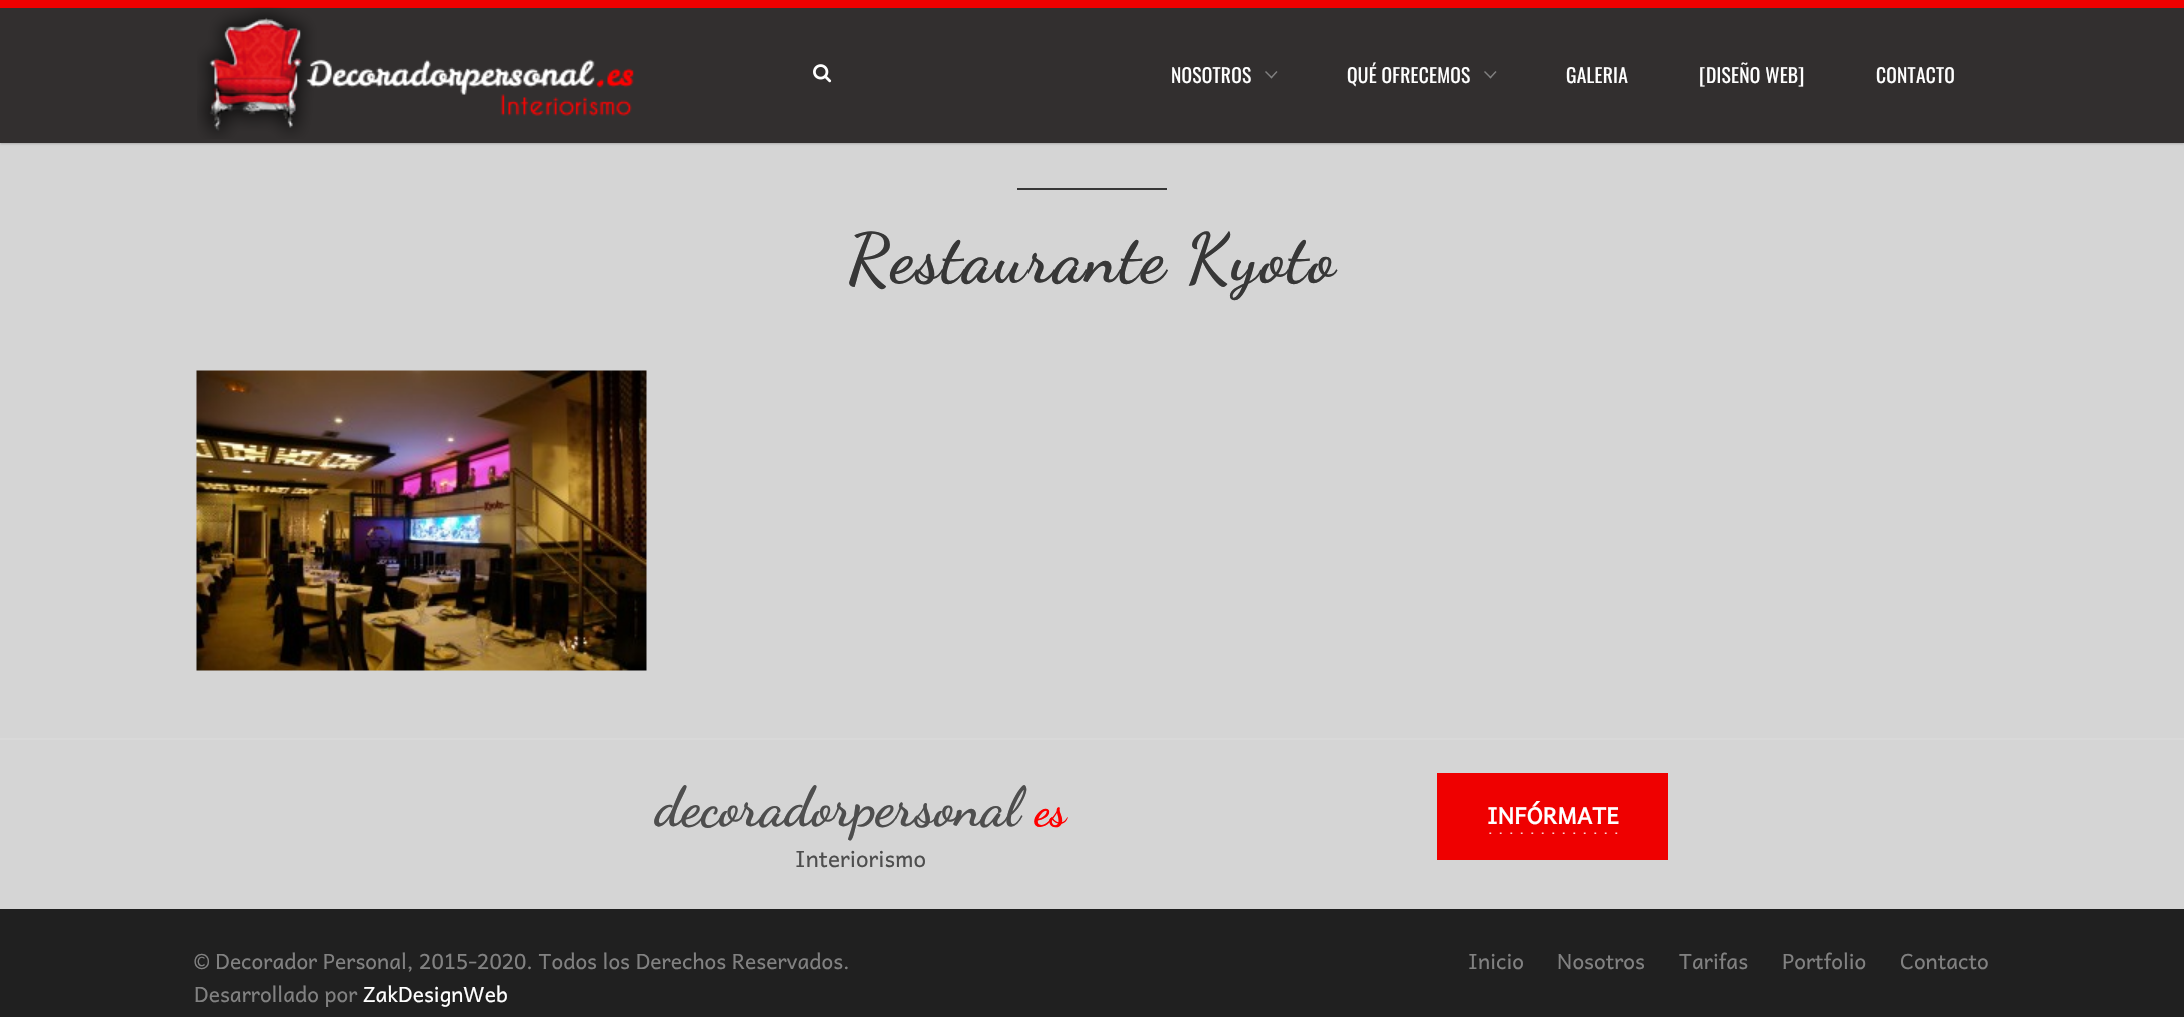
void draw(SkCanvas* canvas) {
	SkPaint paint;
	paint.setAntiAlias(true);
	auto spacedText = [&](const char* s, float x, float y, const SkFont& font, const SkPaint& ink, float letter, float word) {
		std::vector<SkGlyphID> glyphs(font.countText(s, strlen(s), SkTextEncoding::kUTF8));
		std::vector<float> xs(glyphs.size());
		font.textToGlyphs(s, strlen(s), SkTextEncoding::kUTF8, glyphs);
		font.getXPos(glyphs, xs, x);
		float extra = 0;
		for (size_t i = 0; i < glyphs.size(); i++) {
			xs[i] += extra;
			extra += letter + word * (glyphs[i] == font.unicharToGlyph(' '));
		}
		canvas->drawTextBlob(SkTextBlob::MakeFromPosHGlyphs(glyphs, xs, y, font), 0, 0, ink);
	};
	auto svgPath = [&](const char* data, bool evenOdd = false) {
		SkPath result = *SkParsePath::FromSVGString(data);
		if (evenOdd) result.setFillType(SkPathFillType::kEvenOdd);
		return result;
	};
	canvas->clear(0xffd5d5d5);
	paint.setColor(0x33000000);
	paint.setMaskFilter(SkMaskFilter::MakeBlur(kNormal_SkBlurStyle, 1));
	canvas->drawRect(SkRect::MakeXYWH(0, 2, 2184, 142), paint);
	paint.setMaskFilter(nullptr);
	paint.setColor(0xff322f2f);
	canvas->drawRect(SkRect::MakeXYWH(0, 8, 2184, 135), paint);
	paint.setColor(0xffef0000);
	canvas->drawRect(SkRect::MakeXYWH(0, 0, 2184, 8), paint);
	canvas->drawImageRect(SkImages::DeferredFromEncodedData(SkData::MakeFromFileName("img1.png")), SkRect::MakeXYWH(197, 7, 437, 132), SkSamplingOptions());
	canvas->drawImageRect(SkImages::DeferredFromEncodedData(SkData::MakeFromFileName("img2.png")), SkRect::MakeXYWH(813, 64, 19, 19), SkSamplingOptions());
	SkFont f1(fontMgr->matchFamilyStyle("Oswald", SkFontStyle::Normal()), 19.5);
	f1.setSubpixel(true);
	paint.setColor(0xffffffff);
	spacedText("NOSOTROS", 1171, 83, f1, paint, 0.25, 0);
	paint.setColor(0xff818181);
	canvas->drawPath(svgPath("M1277.5 72L1271.5 78.5L1270.5 77.5L1276.5 71Z"), paint);
	canvas->drawPath(svgPath("M1272.5 77.5L1271.5 78.5L1265 72L1266 71Z"), paint);
	paint.setColor(0xffffffff);
	spacedText("QUÉ OFRECEMOS", 1347, 83, f1, paint, 0.25, 0);
	paint.setColor(0xff818181);
	canvas->drawPath(svgPath("M1496.5 72L1490.5 78.5L1489.5 77.5L1495.5 71Z"), paint);
	canvas->drawPath(svgPath("M1491.5 77.5L1490.5 78.5L1484 72L1485 71Z"), paint);
	paint.setColor(0xffffffff);
	spacedText("GALERIA", 1566, 83, f1, paint, 0.25, 0);
	spacedText("[DISEÑO WEB]", 1699, 83, f1, paint, 0.25, 0);
	spacedText("CONTACTO", 1876, 83, f1, paint, 0.25, 0);
	paint.setColor(0xff373737);
	canvas->drawRect(SkRect::MakeXYWH(1017, 188, 150, 2), paint);
	SkFont f2(fontMgr->matchFamilyStyle("Dancing Script", SkFontStyle::Bold()), 69);
	f2.setSubpixel(true);
	spacedText("Restaurante Kyoto", 847, 281, f2, paint, 1.5, 0);
	canvas->drawImageRect(SkImages::DeferredFromEncodedData(SkData::MakeFromFileName("img3.png")), SkRect::MakeXYWH(196, 370, 451, 301), SkSamplingOptions());
	paint.setColor(0xffd9d9d9);
	canvas->drawRect(SkRect::MakeXYWH(0, 738, 2184, 2), paint);
	SkFont f3(fontMgr->matchFamilyStyle("Dancing Script", SkFontStyle::Bold()), 55.5);
	f3.setSubpixel(true);
	paint.setColor(0xff4e4e4e);
	canvas->drawString("decoradorpersonal", 655, 825, f3, paint);
	SkFont f4(fontMgr->matchFamilyStyle("Dancing Script", SkFontStyle::Bold()), 45);
	f4.setSubpixel(true);
	paint.setColor(0xffff0000);
	canvas->drawString("es", 1035, 825, f4, paint);
	SkFont f5(fontMgr->matchFamilyStyle("Andika", SkFontStyle::Normal()), 22.5);
	f5.setSubpixel(true);
	paint.setColor(0xff4e4e4e);
	canvas->drawString("Interiorismo", 795, 867, f5, paint);
	paint.setColor(0xffef0000);
	canvas->drawRect(SkRect::MakeXYWH(1437, 773, 231, 87), paint);
	SkFont f6(fontMgr->matchFamilyStyle("Andika", SkFontStyle::Bold()), 22.5);
	f6.setSubpixel(true);
	paint.setColor(0xffffffff);
	canvas->drawString("INFÓRMATE", 1487, 824, f6, paint);
	canvas->drawImageRect(SkImages::DeferredFromEncodedData(SkData::MakeFromFileName("img4.png")), SkRect::MakeXYWH(1489, 832, 129, 2), SkSamplingOptions());
	paint.setColor(0xff202020);
	canvas->drawRect(SkRect::MakeXYWH(0, 909, 2184, 108), paint);
	SkFont f7(fontMgr->matchFamilyStyle("Andika", SkFontStyle::Normal()), 21);
	f7.setSubpixel(true);
	paint.setColor(0xff818181);
	canvas->drawString("© Decorador Personal, 2015-2020. Todos los Derechos Reservados.", 194, 969, f7, paint);
	canvas->drawString("Desarrollado por", 194, 1002, f7, paint);
	paint.setColor(0xffffffff);
	canvas->drawString("ZakDesignWeb", 363, 1002, f7, paint);
	paint.setColor(0xff818181);
	canvas->drawString("Inicio", 1468, 969, f7, paint);
	canvas->drawString("Nosotros", 1557, 969, f7, paint);
	canvas->drawString("Tarifas", 1679, 969, f7, paint);
	canvas->drawString("Portfolio", 1782, 969, f7, paint);
	canvas->drawString("Contacto", 1900, 969, f7, paint);
}
